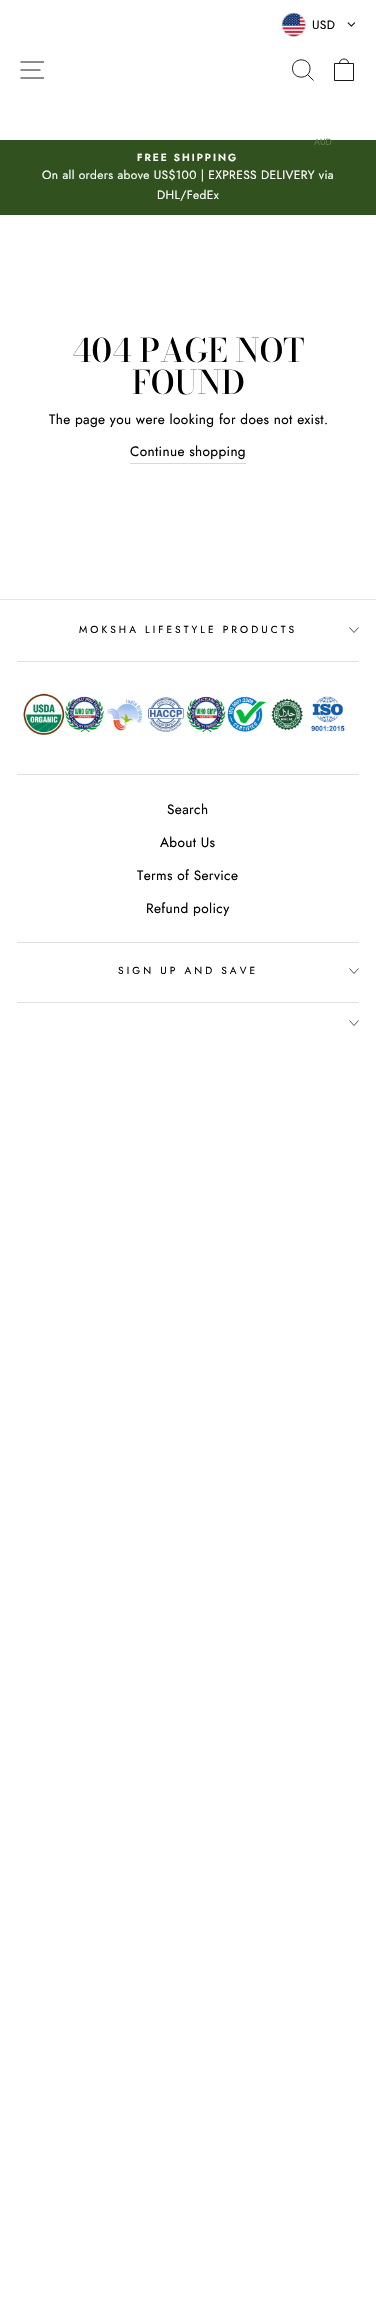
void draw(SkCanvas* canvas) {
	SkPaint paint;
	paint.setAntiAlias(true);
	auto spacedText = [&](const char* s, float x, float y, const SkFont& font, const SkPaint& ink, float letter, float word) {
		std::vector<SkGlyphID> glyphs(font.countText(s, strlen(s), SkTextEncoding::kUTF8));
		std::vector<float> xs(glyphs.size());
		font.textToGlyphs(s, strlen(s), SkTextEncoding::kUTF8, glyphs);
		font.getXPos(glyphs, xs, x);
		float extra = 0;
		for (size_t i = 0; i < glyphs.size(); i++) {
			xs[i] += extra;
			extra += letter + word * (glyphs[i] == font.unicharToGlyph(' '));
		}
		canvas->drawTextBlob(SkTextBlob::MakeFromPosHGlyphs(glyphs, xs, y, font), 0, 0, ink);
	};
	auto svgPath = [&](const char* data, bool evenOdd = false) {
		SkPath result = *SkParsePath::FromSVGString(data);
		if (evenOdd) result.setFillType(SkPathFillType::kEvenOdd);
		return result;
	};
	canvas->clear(0xffffffff);
	canvas->drawImageRect(SkImages::DeferredFromEncodedData(SkData::MakeFromFileName("img1.png")), SkRect::MakeXYWH(281, 12, 25, 25), SkSamplingOptions());
	SkFont f1(fontMgr->matchFamilyStyle("Jost", SkFontStyle::Normal()), 12);
	f1.setSubpixel(true);
	paint.setColor(0xff000000);
	spacedText("USD", 312, 29, f1, paint, 0.35, 0);
	paint.setColor(0xff31521e);
	canvas->drawRect(SkRect::MakeXYWH(0, 140, 376, 75), paint);
	SkFont f2(fontMgr->matchFamilyStyle("Jost", SkFontStyle::Normal()), 9);
	f2.setSubpixel(true);
	paint.setColor(0xff5f7951);
	canvas->drawString("AUD", 314, 145, f2, paint);
	canvas->drawImageRect(SkImages::DeferredFromEncodedData(SkData::MakeFromFileName("img2.png")), SkRect::MakeXYWH(347, 22, 9, 5), SkSamplingOptions());
	paint.setStroke(true);
	paint.setStrokeWidth(0.9);
	paint.setColor(0xff000000);
	canvas->drawPath(svgPath("M20.5 62H44M20.5 70H40.5M20.5 78H44"), paint);
	canvas->drawPath(svgPath("M310 68.5C310 80 292.5 80 292.5 68.5C292.5 57 310 57 310 68.5ZM313.5 80.5L307.5 74.5M334.5 63.5H353.5V80.5H334.5ZM339.5 63.5C339.5 57.5 348.5 57.5 348.5 63.5"), paint);
	SkFont f3(fontMgr->matchFamilyStyle("Jost", SkFontStyle(600, SkFontStyle::kNormal_Width, SkFontStyle::kUpright_Slant)), 10.2);
	f3.setSubpixel(true);
	paint.setStroke(false);
	paint.setColor(0xffffffff);
	spacedText("FREE SHIPPING", 137, 161, f3, paint, 2, 0);
	spacedText("On all orders above US$100 | EXPRESS DELIVERY via", 42, 179, f1, paint, 0.35, 0);
	spacedText("DHL/FedEx", 157, 199, f1, paint, 0.35, 0);
	SkFont f4(fontMgr->matchFamilyStyle("Bodoni Moda", SkFontStyle(500, SkFontStyle::kNormal_Width, SkFontStyle::kUpright_Slant)), 32.25);
	f4.setSubpixel(true);
	paint.setColor(0xff000000);
	canvas->drawString("404 PAGE NOT", 72, 362, f4, paint);
	canvas->drawString("FOUND", 132, 394, f4, paint);
	SkFont f5(fontMgr->matchFamilyStyle("Jost", SkFontStyle::Normal()), 13.6);
	f5.setSubpixel(true);
	spacedText("The page you were looking for does not exist.", 49, 424, f5, paint, 0.35, 0);
	paint.setColor(0xffd9d9d9);
	canvas->drawRect(SkRect::MakeXYWH(130, 463, 116, 1), paint);
	paint.setColor(0xff000000);
	spacedText("Continue shopping", 130, 456, f5, paint, 0.35, 0);
	paint.setColor(0xffe8e8e1);
	canvas->drawRect(SkRect::MakeXYWH(0, 599, 376, 1), paint);
	SkFont f6(fontMgr->matchFamilyStyle("Jost", SkFontStyle::Normal()), 10.2);
	f6.setSubpixel(true);
	paint.setColor(0xff000000);
	spacedText("MOKSHA LIFESTYLE PRODUCTS", 79, 633, f6, paint, 3.05, 0);
	paint.setStroke(true);
	paint.setStrokeWidth(0.7);
	canvas->drawPath(svgPath("M349.5 627.5L354 632.5L358.5 627.5"), paint);
	paint.setStroke(false);
	paint.setColor(0xffe0e0e0);
	canvas->drawRect(SkRect::MakeXYWH(17, 661, 342, 1), paint);
	canvas->drawImageRect(SkImages::DeferredFromEncodedData(SkData::MakeFromFileName("img3.png")), SkRect::MakeXYWH(23, 692, 324, 43), SkSamplingOptions());
	canvas->drawRect(SkRect::MakeXYWH(17, 774, 342, 1), paint);
	paint.setColor(0xff000000);
	spacedText("Search", 167, 814, f5, paint, 0.35, 0);
	spacedText("About Us", 160, 847, f5, paint, 0.35, 0);
	spacedText("Terms of Service", 137, 880, f5, paint, 0.35, 0);
	spacedText("Refund policy", 146, 913, f5, paint, 0.35, 0);
	paint.setColor(0xffe0e0e0);
	canvas->drawRect(SkRect::MakeXYWH(17, 942, 342, 1), paint);
	paint.setColor(0xff000000);
	spacedText("SIGN UP AND SAVE", 118, 974, f6, paint, 3.05, 0);
	paint.setStroke(true);
	canvas->drawPath(svgPath("M349.5 968.5L354 973.5L358.5 968.5"), paint);
	paint.setStroke(false);
	paint.setColor(0xffe0e0e0);
	canvas->drawRect(SkRect::MakeXYWH(17, 1002, 342, 1), paint);
	paint.setStroke(true);
	paint.setColor(0xff000000);
	canvas->drawPath(svgPath("M349.5 1020.5L354 1025.5L358.5 1020.5"), paint);
}
